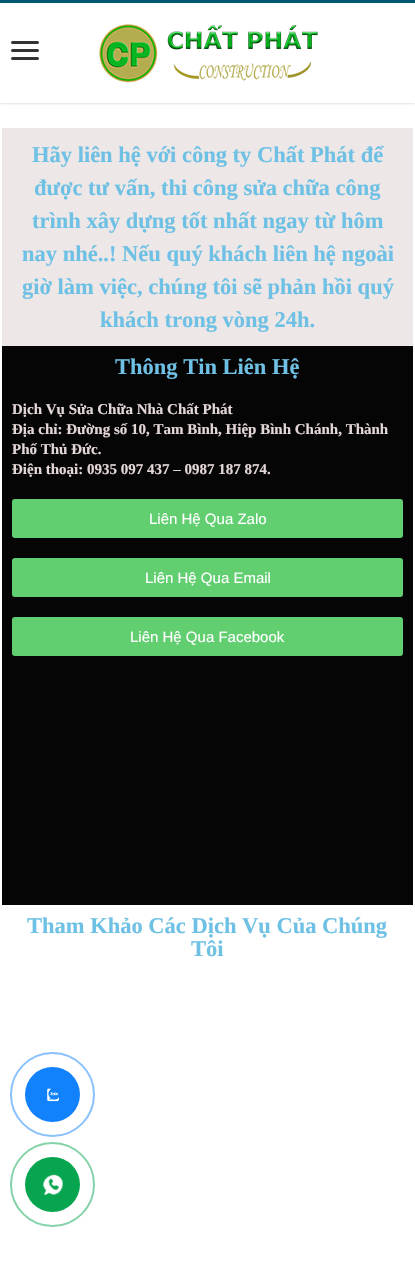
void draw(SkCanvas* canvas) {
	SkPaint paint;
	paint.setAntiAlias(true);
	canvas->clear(0xffffffff);
	canvas->save();
	canvas->clipRect(SkRect::MakeXYWH(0, 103, 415, 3));
	paint.setColor(0xffcacaca);
	paint.setMaskFilter(SkMaskFilter::MakeBlur(kNormal_SkBlurStyle, 1.5));
	canvas->drawRect(SkRect::MakeXYWH(0, 0, 415, 103), paint);
	paint.setMaskFilter(nullptr);
	canvas->restore();
	paint.setColor(0xff015873);
	canvas->drawRect(SkRect::MakeXYWH(0, 0, 415, 3), paint);
	paint.setColor(0xff333333);
	canvas->drawRoundRect(SkRect::MakeXYWH(11, 41, 28, 3), 1.5, 1.5, paint);
	canvas->drawRoundRect(SkRect::MakeXYWH(11, 49, 28, 3), 1.5, 1.5, paint);
	canvas->drawRoundRect(SkRect::MakeXYWH(11, 57, 28, 3), 1.5, 1.5, paint);
	canvas->drawImageRect(SkImages::DeferredFromEncodedData(SkData::MakeFromFileName("img1.png")), SkRect::MakeXYWH(98, 23, 220, 60), SkSamplingOptions());
	paint.setColor(0xffede7e7);
	canvas->drawRect(SkRect::MakeXYWH(2, 128, 411, 218), paint);
	SkFont f1(fontMgr->matchFamilyStyle("Liberation Serif", SkFontStyle::Bold()), 22.5);
	f1.setSubpixel(true);
	paint.setColor(0xff6ec1e4);
	canvas->drawString("Hãy liên hệ với công ty Chất Phát để", 32, 162, f1, paint);
	canvas->drawString("được tư vấn, thi công sửa chữa công", 34, 195, f1, paint);
	canvas->drawString("trình xây dựng tốt nhất ngay từ hôm", 32, 228, f1, paint);
	canvas->drawString("nay nhé..! Nếu quý khách liên hệ ngoài", 22, 261, f1, paint);
	canvas->drawString("giờ làm việc, chúng tôi sẽ phản hồi quý", 22, 294, f1, paint);
	canvas->drawString("khách trong vòng 24h.", 100, 327, f1, paint);
	paint.setColor(0xff060505);
	canvas->drawRect(SkRect::MakeXYWH(2, 346, 411, 559), paint);
	paint.setColor(0xff6ec1e4);
	canvas->drawString("Thông Tin Liên Hệ", 115, 374, f1, paint);
	SkFont f2(fontMgr->matchFamilyStyle("Liberation Serif", SkFontStyle::Bold()), 15);
	f2.setSubpixel(true);
	paint.setColor(0xffe4d7d7);
	canvas->drawString("Dịch Vụ Sửa Chữa Nhà Chất Phát", 12, 414, f2, paint);
	canvas->drawString("Địa chỉ: Đường số 10, Tam Bình, Hiệp Bình Chánh, Thành", 12, 434, f2, paint);
	canvas->drawString("Phố Thủ Đức.", 12, 454, f2, paint);
	canvas->drawString("Điện thoại: 0935 097 437 – 0987 187 874.", 12, 474, f2, paint);
	paint.setColor(0xff61ce70);
	canvas->drawRoundRect(SkRect::MakeXYWH(12, 499, 391, 39), 3, 3, paint);
	SkFont f3(fontMgr->matchFamilyStyle("Liberation Sans", SkFontStyle::Normal()), 15);
	f3.setSubpixel(true);
	paint.setColor(0xffffffff);
	canvas->drawString("Liên Hệ Qua Zalo", 149, 524, f3, paint);
	paint.setColor(0xff61ce70);
	canvas->drawRoundRect(SkRect::MakeXYWH(12, 558, 391, 39), 3, 3, paint);
	paint.setColor(0xffffffff);
	canvas->drawString("Liên Hệ Qua Email", 145, 583, f3, paint);
	paint.setColor(0xff61ce70);
	canvas->drawRoundRect(SkRect::MakeXYWH(12, 617, 391, 39), 3, 3, paint);
	paint.setColor(0xffffffff);
	canvas->drawString("Liên Hệ Qua Facebook", 130, 642, f3, paint);
	paint.setColor(0xff6ec1e4);
	canvas->drawString("Tham Khảo Các Dịch Vụ Của Chúng", 27, 933, f1, paint);
	canvas->drawString("Tôi", 191, 956, f1, paint);
	paint.setStroke(true);
	paint.setStrokeWidth(2);
	paint.setColor(0xff88c1fe);
	canvas->drawCircle(52.5, 1094.5, 41.5, paint);
	paint.setStroke(false);
	paint.setColor(0xff1182fc);
	canvas->drawCircle(52.5, 1094.5, 27.5, paint);
	canvas->drawImageRect(SkImages::DeferredFromEncodedData(SkData::MakeFromFileName("img2.png")), SkRect::MakeXYWH(47, 1088, 12, 14), SkSamplingOptions());
	paint.setStroke(true);
	paint.setColor(0xff84d2a8);
	canvas->drawCircle(52.5, 1184.5, 41.5, paint);
	paint.setStroke(false);
	paint.setColor(0xff08a551);
	canvas->drawCircle(52.5, 1184.5, 27.5, paint);
	canvas->drawImageRect(SkImages::DeferredFromEncodedData(SkData::MakeFromFileName("img3.png")), SkRect::MakeXYWH(42, 1174, 21, 21), SkSamplingOptions());
}
